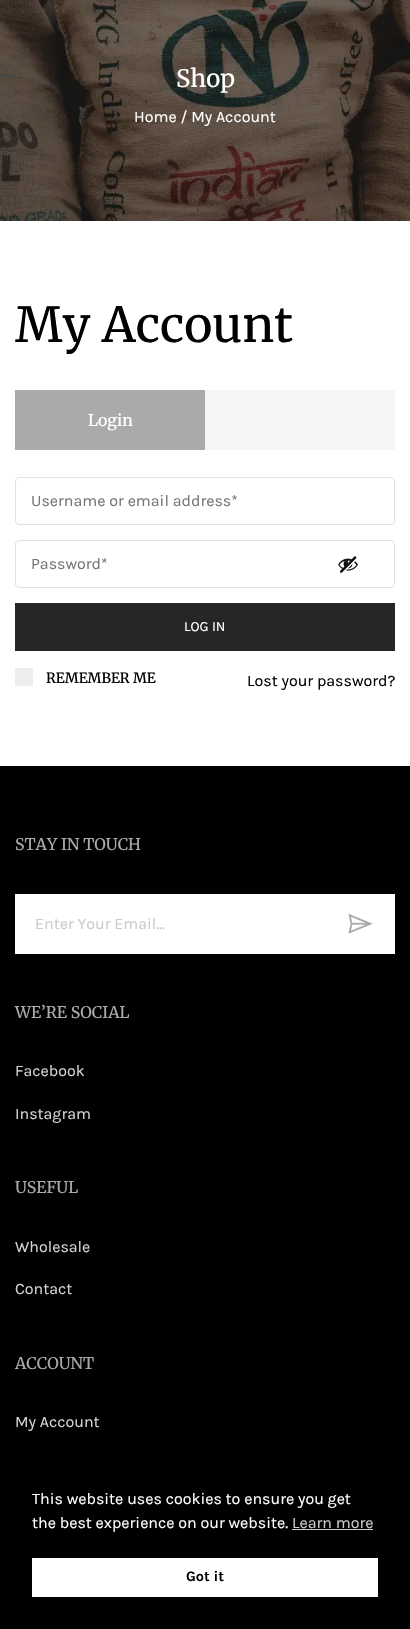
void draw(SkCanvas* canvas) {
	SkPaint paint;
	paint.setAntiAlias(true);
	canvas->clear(0xffffffff);
	canvas->drawImageRect(SkImages::DeferredFromEncodedData(SkData::MakeFromFileName("img1.png")), SkRect::MakeXYWH(0, 0, 410, 221), SkSamplingOptions());
	SkFont f1(fontMgr->matchFamilyStyle("Merriweather", SkFontStyle::Normal()), 24);
	f1.setSubpixel(true);
	paint.setColor(0xffffffff);
	canvas->drawString("Shop", 176, 87, f1, paint);
	SkFont f2(fontMgr->matchFamilyStyle("Karla", SkFontStyle::Normal()), 16);
	f2.setSubpixel(true);
	canvas->drawString("Home / My Account", 134, 122, f2, paint);
	SkFont f3(fontMgr->matchFamilyStyle("Merriweather", SkFontStyle::Normal()), 48);
	f3.setSubpixel(true);
	paint.setColor(0xff000000);
	canvas->drawString("My Account", 15, 342, f3, paint);
	paint.setColor(0xfff5f5f5);
	canvas->drawRect(SkRect::MakeXYWH(205, 390, 190, 60), paint);
	paint.setColor(0xffaaaaaa);
	canvas->drawRect(SkRect::MakeXYWH(15, 390, 190, 60), paint);
	SkFont f4(fontMgr->matchFamilyStyle("Merriweather", SkFontStyle::Normal()), 16);
	f4.setSubpixel(true);
	paint.setColor(0xffffffff);
	canvas->drawString("Login", 88, 426, f4, paint);
	paint.setStroke(true);
	paint.setStrokeWidth(1);
	paint.setColor(0xffe1e1e1);
	canvas->drawRoundRect(SkRect::MakeXYWH(15.5, 477.5, 379, 47), 3.5, 3.5, paint);
	paint.setStroke(false);
	paint.setColor(0xff757575);
	canvas->drawString("Username or email address*", 31, 506, f2, paint);
	paint.setStroke(true);
	paint.setColor(0xffe1e1e1);
	canvas->drawRoundRect(SkRect::MakeXYWH(15.5, 540.5, 379, 47), 3.5, 3.5, paint);
	paint.setStroke(false);
	paint.setColor(0xff757575);
	canvas->drawString("Password*", 31, 569, f2, paint);
	canvas->drawImageRect(SkImages::DeferredFromEncodedData(SkData::MakeFromFileName("img2.png")), SkRect::MakeXYWH(338, 556, 20, 17), SkSamplingOptions());
	paint.setColor(0xff262626);
	canvas->drawRect(SkRect::MakeXYWH(15, 603, 380, 48), paint);
	SkFont f5(fontMgr->matchFamilyStyle("Karla", SkFontStyle::Normal()), 14);
	f5.setSubpixel(true);
	paint.setColor(0xffffffff);
	canvas->drawString("LOG IN", 184, 631, f5, paint);
	paint.setColor(0xffeeeeee);
	canvas->drawRect(SkRect::MakeXYWH(15, 668, 18, 18), paint);
	SkFont f6(fontMgr->matchFamilyStyle("Merriweather", SkFontStyle(500, SkFontStyle::kNormal_Width, SkFontStyle::kUpright_Slant)), 14);
	f6.setSubpixel(true);
	paint.setColor(0xff000000);
	canvas->drawString("REMEMBER ME", 46, 683, f6, paint);
	canvas->drawString("Lost your password?", 247, 686, f2, paint);
	canvas->drawRect(SkRect::MakeXYWH(0, 766, 410, 863), paint);
	paint.setColor(0xffaaaaaa);
	canvas->drawString("STAY IN TOUCH", 15, 850, f4, paint);
	paint.setColor(0xffffffff);
	canvas->drawRect(SkRect::MakeXYWH(15, 894, 380, 60), paint);
	paint.setColor(0xffcccccc);
	canvas->drawString("Enter Your Email...", 35, 929, f2, paint);
	canvas->drawImageRect(SkImages::DeferredFromEncodedData(SkData::MakeFromFileName("img3.png")), SkRect::MakeXYWH(348, 913, 25, 21), SkSamplingOptions());
	paint.setColor(0xffaaaaaa);
	canvas->drawString("WE’RE SOCIAL", 15, 1018, f4, paint);
	paint.setColor(0xffd5d5d5);
	canvas->drawString("Facebook", 15, 1076, f2, paint);
	canvas->drawString("Instagram", 15, 1119, f2, paint);
	paint.setColor(0xffaaaaaa);
	canvas->drawString("USEFUL", 15, 1193, f4, paint);
	paint.setColor(0xffd5d5d5);
	canvas->drawString("Wholesale", 15, 1252, f2, paint);
	canvas->drawString("Contact", 15, 1294, f2, paint);
	paint.setColor(0xffaaaaaa);
	canvas->drawString("ACCOUNT", 15, 1369, f4, paint);
	paint.setColor(0xffd5d5d5);
	canvas->drawString("My Account", 15, 1427, f2, paint);
	paint.setColor(0xffffffff);
	canvas->drawString("This website uses cookies to ensure you get", 32, 1504, f2, paint);
	canvas->drawString("the best experience on our website.", 32, 1528, f2, paint);
	paint.setColor(0xffcccccc);
	canvas->drawString("Learn more", 292, 1528, f2, paint);
	canvas->drawRect(SkRect::MakeXYWH(292, 1529, 81, 1), paint);
	paint.setColor(0xffffffff);
	canvas->drawRect(SkRect::MakeXYWH(32, 1558, 346, 39), paint);
	SkFont f7(fontMgr->matchFamilyStyle("Karla", SkFontStyle::Bold()), 14.5);
	f7.setSubpixel(true);
	paint.setColor(0xff000000);
	canvas->drawString("Got it", 186, 1581, f7, paint);
}
